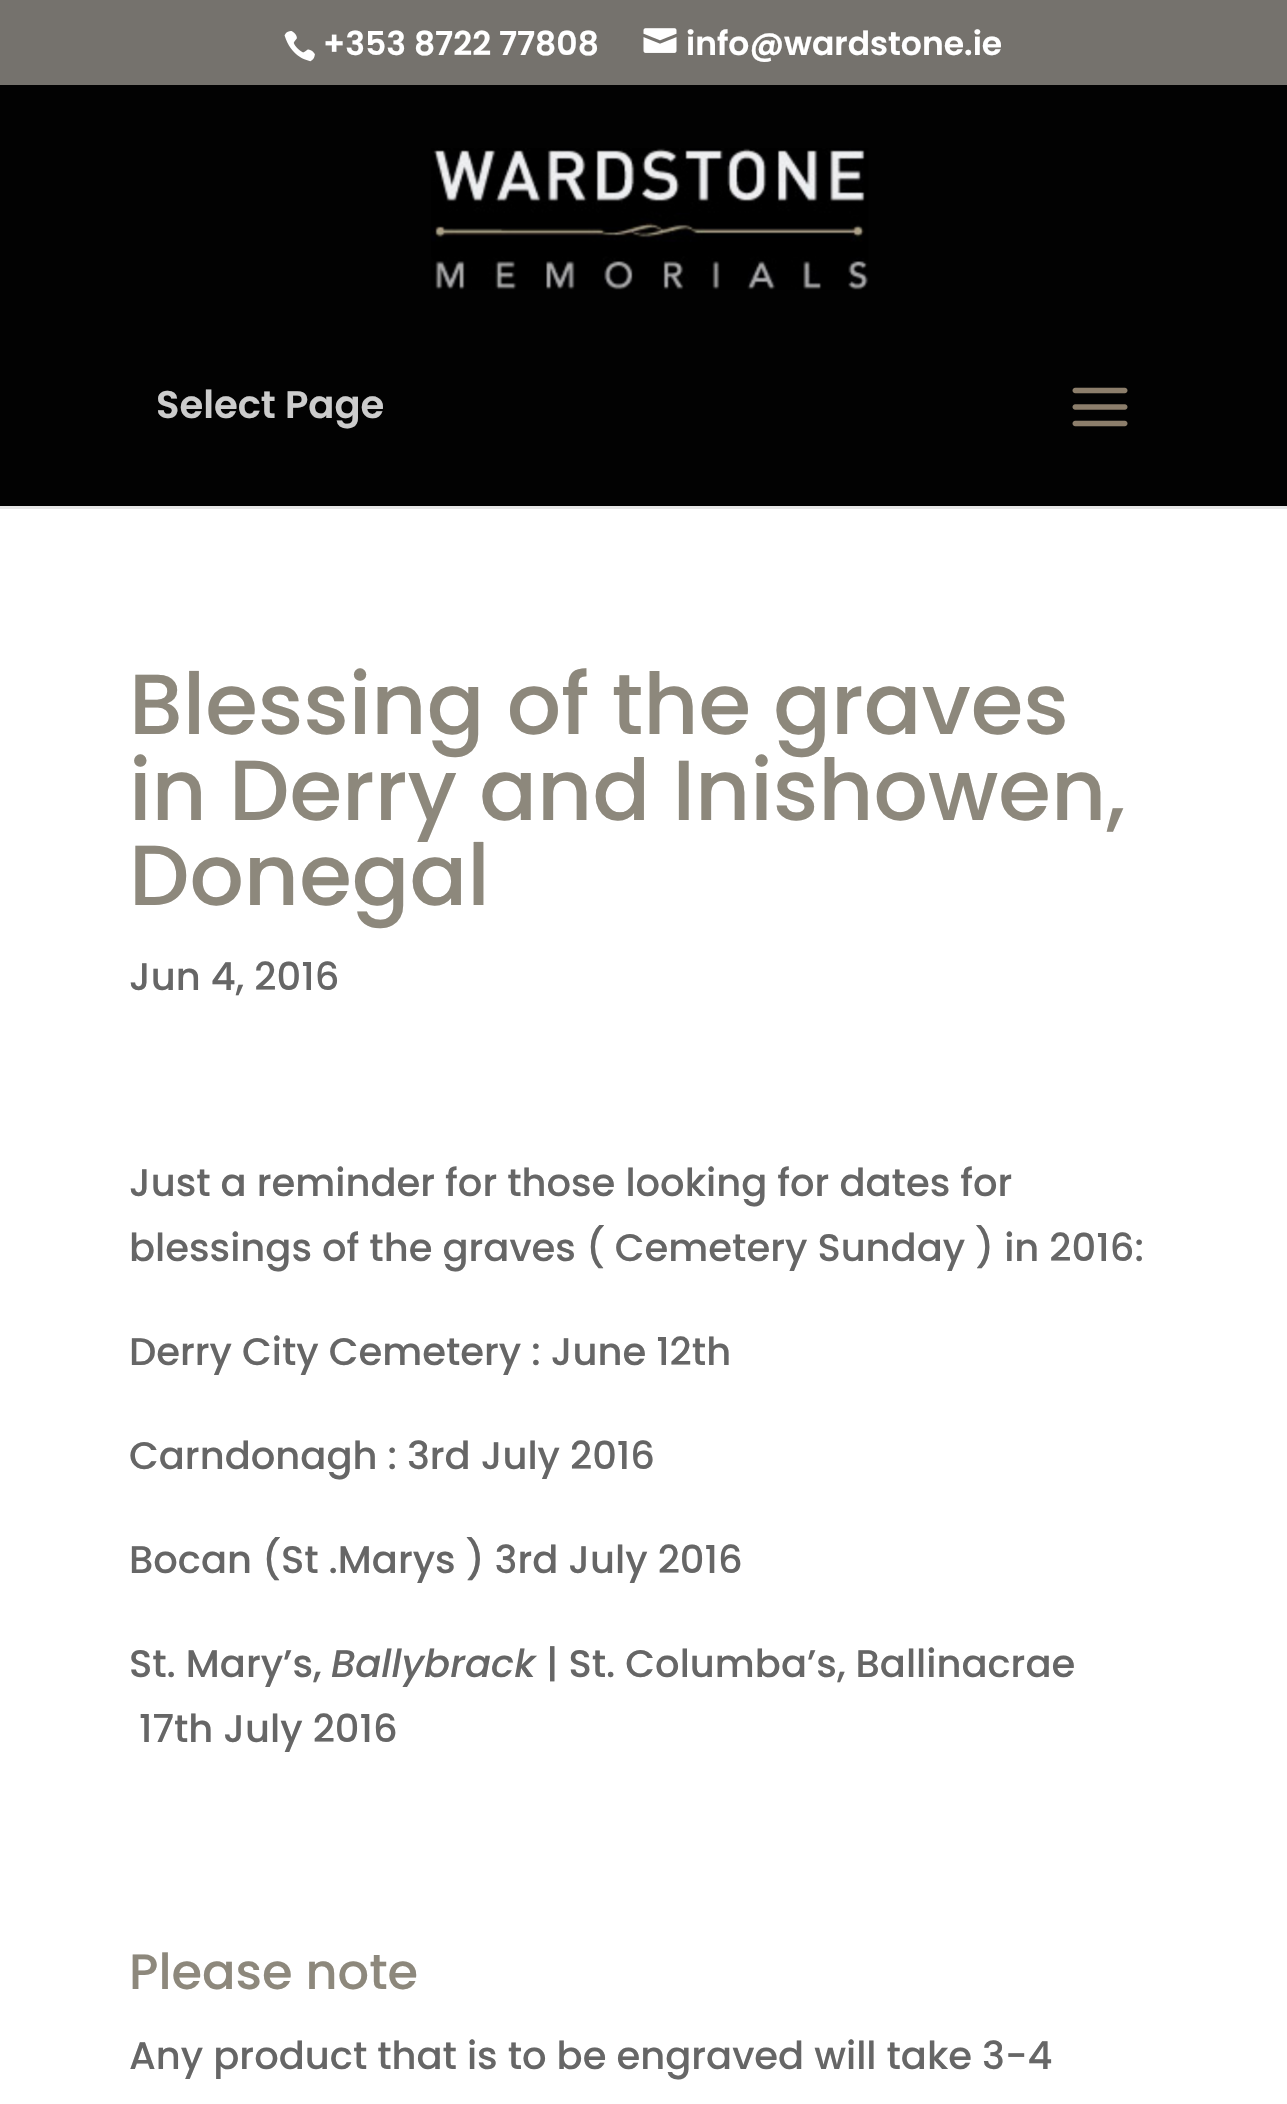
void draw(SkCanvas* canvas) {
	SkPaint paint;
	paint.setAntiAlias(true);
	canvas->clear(0xffffffff);
	paint.setColor(0xff75726d);
	canvas->drawRect(SkRect::MakeXYWH(0, 0, 1287, 85), paint);
	canvas->drawImageRect(SkImages::DeferredFromEncodedData(SkData::MakeFromFileName("img1.png")), SkRect::MakeXYWH(284, 31, 31, 31), SkSamplingOptions());
	SkFont f1(fontMgr->matchFamilyStyle("Poppins", SkFontStyle(600, SkFontStyle::kNormal_Width, SkFontStyle::kUpright_Slant)), 33);
	f1.setSubpixel(true);
	paint.setColor(0xffffffff);
	canvas->drawString("+353 8722 77808", 323, 55, f1, paint);
	canvas->drawImageRect(SkImages::DeferredFromEncodedData(SkData::MakeFromFileName("img2.png")), SkRect::MakeXYWH(643, 28, 34, 25), SkSamplingOptions());
	canvas->drawString("info@wardstone.ie", 686, 55, f1, paint);
	paint.setColor(0xffe6e6e6);
	canvas->drawRect(SkRect::MakeXYWH(0, 506, 1287, 3), paint);
	paint.setColor(0xff020202);
	canvas->drawRect(SkRect::MakeXYWH(0, 85, 1287, 421), paint);
	canvas->drawImageRect(SkImages::DeferredFromEncodedData(SkData::MakeFromFileName("img3.png")), SkRect::MakeXYWH(431, 148, 438, 142), SkSamplingOptions());
	SkFont f2(fontMgr->matchFamilyStyle("Poppins", SkFontStyle(600, SkFontStyle::kNormal_Width, SkFontStyle::kUpright_Slant)), 38.5);
	f2.setSubpixel(true);
	paint.setColor(0xffcccccc);
	canvas->drawString("Select Page", 156, 418, f2, paint);
	canvas->drawImageRect(SkImages::DeferredFromEncodedData(SkData::MakeFromFileName("img4.png")), SkRect::MakeXYWH(1072, 387, 56, 40), SkSamplingOptions());
	SkFont f3(fontMgr->matchFamilyStyle("Poppins", SkFontStyle(500, SkFontStyle::kNormal_Width, SkFontStyle::kUpright_Slant)), 85.25);
	f3.setSubpixel(true);
	paint.setColor(0xff8d887c);
	canvas->drawString("Blessing of the graves", 129, 734, f3, paint);
	canvas->drawString("in Derry and Inishowen,", 129, 820, f3, paint);
	canvas->drawString("Donegal", 129, 905, f3, paint);
	SkFont f4(fontMgr->matchFamilyStyle("Poppins", SkFontStyle(500, SkFontStyle::kNormal_Width, SkFontStyle::kUpright_Slant)), 38.5);
	f4.setSubpixel(true);
	paint.setColor(0xff666666);
	canvas->drawString("Jun 4, 2016", 129, 990, f4, paint);
	canvas->drawString("Just a reminder for those looking for dates for", 129, 1196, f4, paint);
	canvas->drawString("blessings of the graves ( Cemetery Sunday ) in 2016:", 129, 1261, f4, paint);
	canvas->drawString("Derry City Cemetery : June 12th", 129, 1365, f4, paint);
	canvas->drawString("Carndonagh : 3rd July 2016", 129, 1469, f4, paint);
	canvas->drawString("Bocan (St .Marys ) 3rd July 2016", 129, 1573, f4, paint);
	canvas->drawString("St. Mary’s,", 129, 1677, f4, paint);
	SkFont f5(fontMgr->matchFamilyStyle("Poppins", SkFontStyle(500, SkFontStyle::kNormal_Width, SkFontStyle::kItalic_Slant)), 38.5);
	f5.setSubpixel(true);
	canvas->drawString("Ballybrack", 331, 1677, f5, paint);
	canvas->drawString("| St. Columba’s, Ballinacrae", 546, 1677, f4, paint);
	canvas->drawString("17th July 2016", 139, 1742, f4, paint);
	SkFont f6(fontMgr->matchFamilyStyle("Poppins", SkFontStyle(500, SkFontStyle::kNormal_Width, SkFontStyle::kUpright_Slant)), 49.5);
	f6.setSubpixel(true);
	paint.setColor(0xff8d887c);
	canvas->drawString("Please note", 129, 1989, f6, paint);
	paint.setColor(0xff666666);
	canvas->drawString("Any product that is to be engraved will take 3-4", 129, 2069, f4, paint);
}
